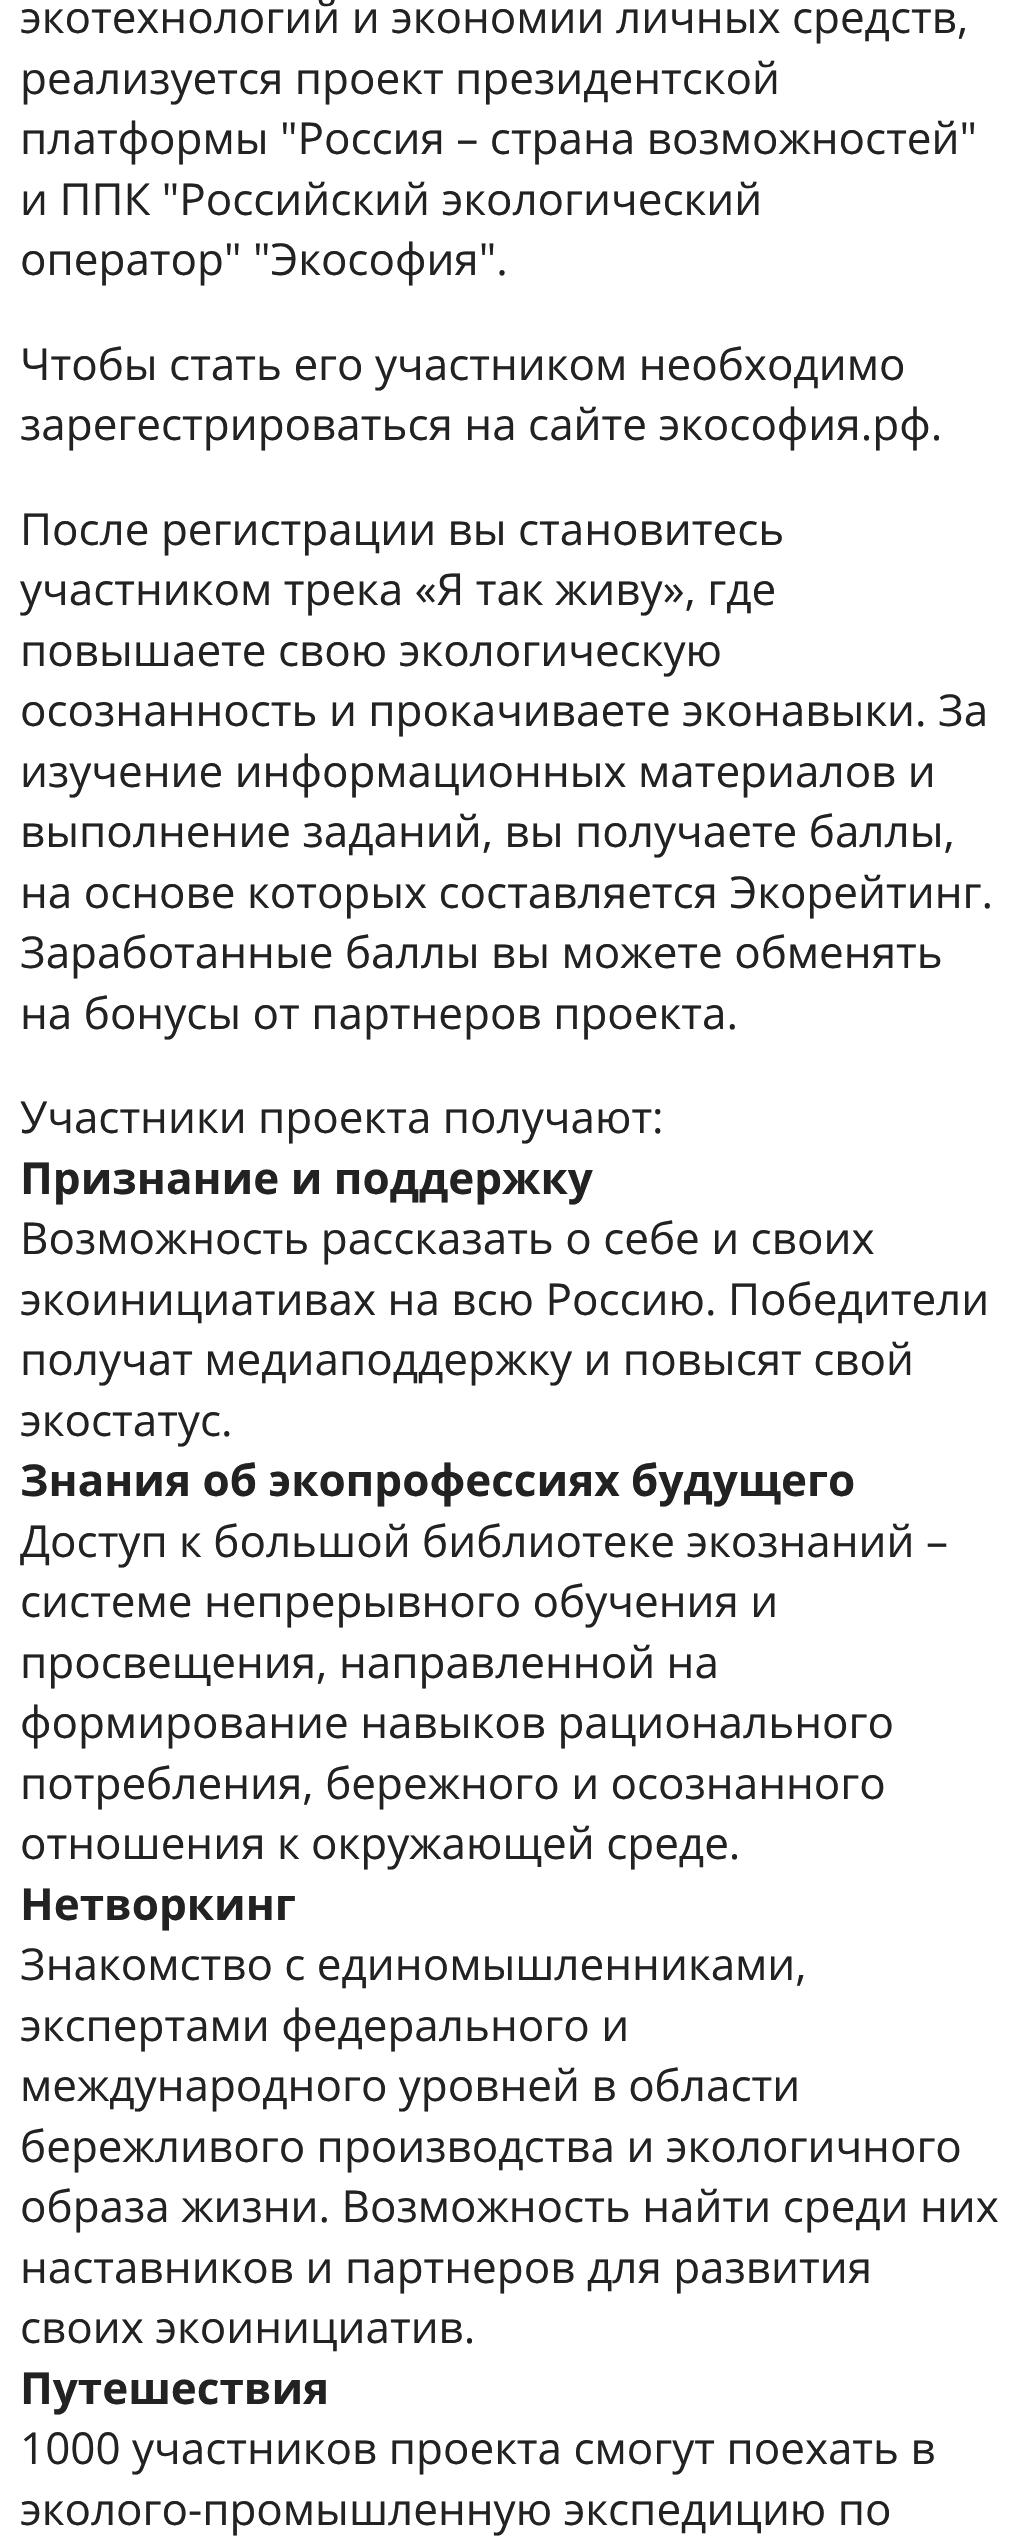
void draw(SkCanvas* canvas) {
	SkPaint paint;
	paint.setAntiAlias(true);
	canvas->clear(0xffffffff);
	SkFont f1(fontMgr->matchFamilyStyle("Open Sans", SkFontStyle::Normal()), 44);
	f1.setSubpixel(true);
	paint.setColor(0xff222222);
	canvas->drawString("экотехнологий и экономии личных средств,", 20, 33, f1, paint);
	canvas->drawString("реализуется проект президентской", 20, 94, f1, paint);
	canvas->drawString("платформы \"Россия – страна возможностей\"", 20, 154, f1, paint);
	canvas->drawString("и ППК \"Российский экологический", 20, 215, f1, paint);
	canvas->drawString("оператор\" \"Экософия\".", 20, 275, f1, paint);
	canvas->drawString("Чтобы стать его участником необходимо", 20, 380, f1, paint);
	canvas->drawString("зарегестрироваться на сайте экософия.рф.", 20, 440, f1, paint);
	canvas->drawString("После регистрации вы становитесь", 20, 545, f1, paint);
	canvas->drawString("участником трека «Я так живу», где", 20, 605, f1, paint);
	canvas->drawString("повышаете свою экологическую", 20, 666, f1, paint);
	canvas->drawString("осознанность и прокачиваете эконавыки. За", 20, 726, f1, paint);
	canvas->drawString("изучение информационных материалов и", 20, 787, f1, paint);
	canvas->drawString("выполнение заданий, вы получаете баллы,", 20, 847, f1, paint);
	canvas->drawString("на основе которых составляется Экорейтинг.", 20, 908, f1, paint);
	canvas->drawString("Заработанные баллы вы можете обменять", 20, 968, f1, paint);
	canvas->drawString("на бонусы от партнеров проекта.", 20, 1029, f1, paint);
	canvas->drawString("Участники проекта получают:", 20, 1133, f1, paint);
	SkFont f2(fontMgr->matchFamilyStyle("Open Sans", SkFontStyle::Bold()), 44);
	f2.setSubpixel(true);
	canvas->drawString("Признание и поддержку", 20, 1194, f2, paint);
	canvas->drawString("Возможность рассказать о себе и своих", 20, 1254, f1, paint);
	canvas->drawString("экоинициативах на всю Россию. Победители", 20, 1315, f1, paint);
	canvas->drawString("получат медиаподдержку и повысят свой", 20, 1375, f1, paint);
	canvas->drawString("экостатус.", 20, 1436, f1, paint);
	canvas->drawString("Знания об экопрофессиях будущего", 20, 1496, f2, paint);
	canvas->drawString("Доступ к большой библиотеке экознаний –", 20, 1557, f1, paint);
	canvas->drawString("системе непрерывного обучения и", 20, 1617, f1, paint);
	canvas->drawString("просвещения, направленной на", 20, 1678, f1, paint);
	canvas->drawString("формирование навыков рационального", 20, 1738, f1, paint);
	canvas->drawString("потребления, бережного и осознанного", 20, 1799, f1, paint);
	canvas->drawString("отношения к окружающей среде.", 20, 1859, f1, paint);
	canvas->drawString("Нетворкинг", 20, 1920, f2, paint);
	canvas->drawString("Знакомство с единомышленниками,", 20, 1980, f1, paint);
	canvas->drawString("экспертами федерального и", 20, 2041, f1, paint);
	canvas->drawString("международного уровней в области", 20, 2101, f1, paint);
	canvas->drawString("бережливого производства и экологичного", 20, 2162, f1, paint);
	canvas->drawString("образа жизни. Возможность найти среди них", 20, 2222, f1, paint);
	canvas->drawString("наставников и партнеров для развития", 20, 2283, f1, paint);
	canvas->drawString("своих экоинициатив.", 20, 2343, f1, paint);
	canvas->drawString("Путешествия", 20, 2404, f2, paint);
	canvas->drawString("1000 участников проекта смогут поехать в", 20, 2464, f1, paint);
	canvas->drawString("эколого-промышленную экспедицию по", 20, 2525, f1, paint);
}
